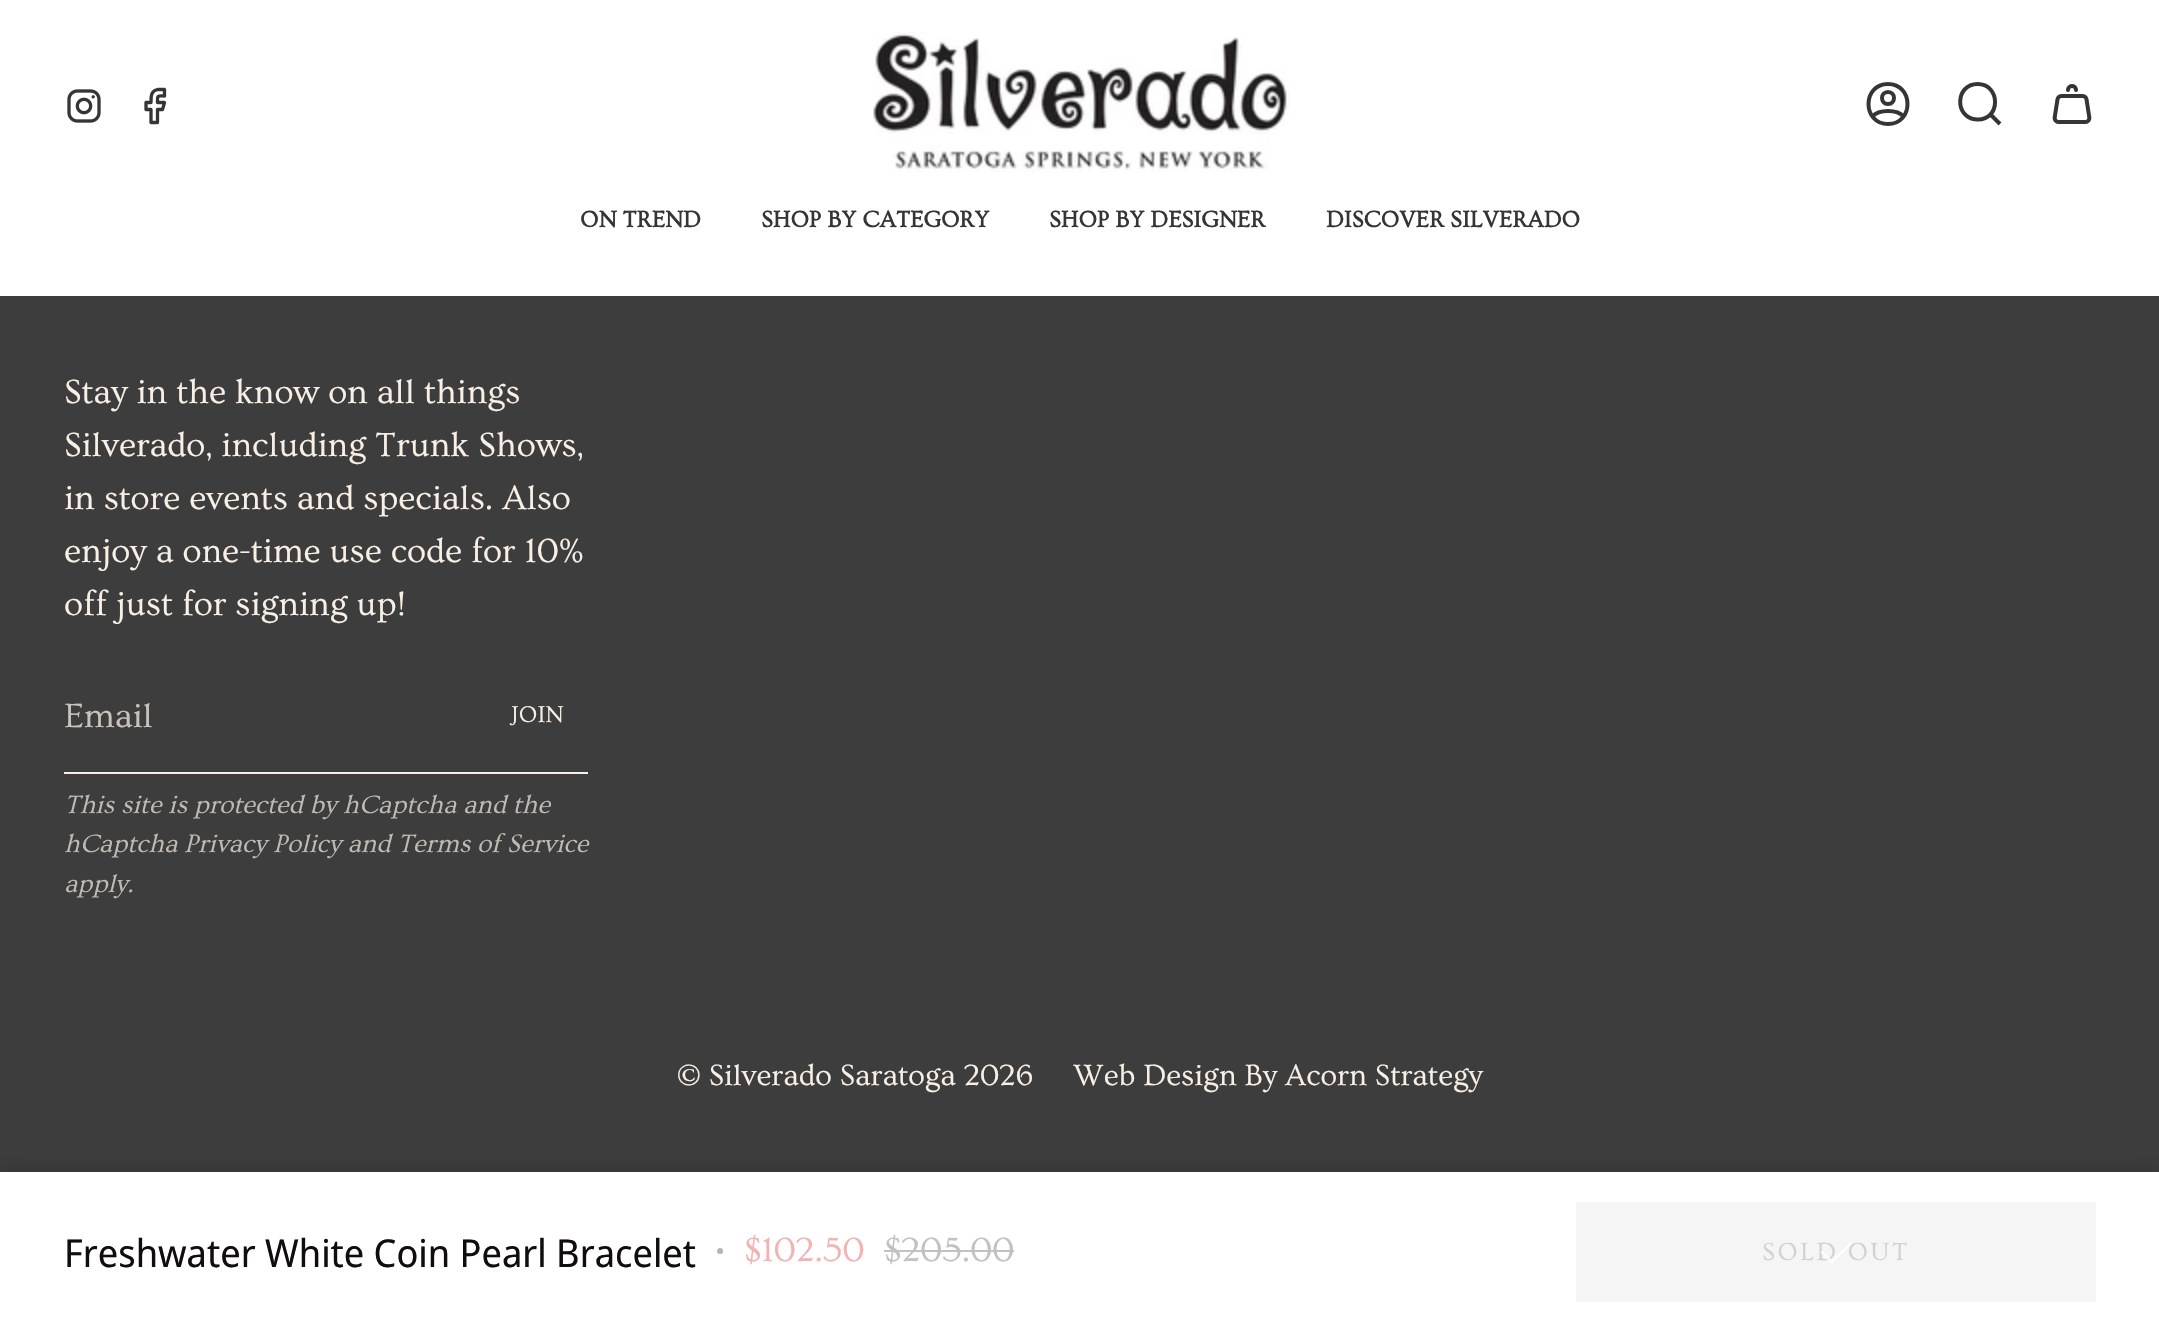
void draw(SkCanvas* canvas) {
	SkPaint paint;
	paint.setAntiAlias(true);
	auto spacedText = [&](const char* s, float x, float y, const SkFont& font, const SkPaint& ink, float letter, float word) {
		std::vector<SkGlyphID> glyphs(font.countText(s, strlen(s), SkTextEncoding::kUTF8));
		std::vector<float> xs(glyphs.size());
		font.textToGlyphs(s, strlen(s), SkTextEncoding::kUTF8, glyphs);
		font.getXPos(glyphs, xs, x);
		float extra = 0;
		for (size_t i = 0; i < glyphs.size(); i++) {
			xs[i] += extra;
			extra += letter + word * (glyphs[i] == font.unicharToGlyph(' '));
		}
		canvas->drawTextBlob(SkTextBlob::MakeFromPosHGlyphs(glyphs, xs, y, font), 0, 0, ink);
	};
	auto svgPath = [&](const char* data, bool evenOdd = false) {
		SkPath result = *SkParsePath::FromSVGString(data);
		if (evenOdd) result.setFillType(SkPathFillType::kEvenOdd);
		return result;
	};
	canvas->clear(0xff3e3d3e);
	paint.setColor(0xffffffff);
	canvas->drawRect(SkRect::MakeXYWH(0, 0, 2159, 296), paint);
	canvas->drawImageRect(SkImages::DeferredFromEncodedData(SkData::MakeFromFileName("img1.png")), SkRect::MakeXYWH(67, 89, 34, 34), SkSamplingOptions());
	paint.setStroke(true);
	paint.setStrokeWidth(3.3);
	paint.setStrokeCap(SkPaint::kRound_Cap);
	paint.setStrokeJoin(SkPaint::kRound_Join);
	paint.setColor(0xff353535);
	canvas->drawPath(svgPath("M164.5 89.5H157.5C150.5 91 151 97 151 102.5H146V109.5H151V122.5H157.5V109.5H162.5L164.5 102.5H157.5C157.5 95 157 96 164.5 96Z"), paint);
	canvas->drawImageRect(SkImages::DeferredFromEncodedData(SkData::MakeFromFileName("img2.png")), SkRect::MakeXYWH(873, 32, 417, 140), SkSamplingOptions());
	paint.setStrokeWidth(4);
	canvas->drawPath(svgPath("M1888 84C1862 84 1862 124 1888 124C1914 124 1914 84 1888 84ZM1872.5 116.5C1878.5 109 1897.5 109 1903.5 116.5M1888 104C1896 104 1896 92 1888 92C1880 92 1880 104 1888 104Z"), paint);
	paint.setStrokeCap(SkPaint::kButt_Cap);
	paint.setStrokeJoin(SkPaint::kMiter_Join);
	canvas->drawPath(svgPath("M1977.5 84C2001 84 2001 120.5 1977 119.5C1954 118.5 1955 84 1977.5 84ZM1990 114L2000 124"), paint);
	canvas->drawImageRect(SkImages::DeferredFromEncodedData(SkData::MakeFromFileName("img3.png")), SkRect::MakeXYWH(2052, 84, 40, 40), SkSamplingOptions());
	SkFont f1(fontMgr->matchFamilyStyle("Ovo", SkFontStyle::Bold()), 23.75);
	f1.setSubpixel(true);
	paint.setStroke(false);
	canvas->drawString("ON TREND", 580, 227, f1, paint);
	canvas->drawString("SHOP BY CATEGORY", 761, 227, f1, paint);
	canvas->drawString("SHOP BY DESIGNER", 1049, 227, f1, paint);
	canvas->drawString("DISCOVER SILVERADO", 1326, 227, f1, paint);
	paint.setColor(0x33000000);
	paint.setMaskFilter(SkMaskFilter::MakeBlur(kNormal_SkBlurStyle, 10));
	canvas->drawRect(SkRect::MakeXYWH(0, 1172, 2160, 160), paint);
	paint.setMaskFilter(nullptr);
	paint.setColor(0xffffffff);
	canvas->drawRect(SkRect::MakeXYWH(0, 1172, 2159, 160), paint);
	SkFont f2(fontMgr->matchFamilyStyle("Noto Sans Display", SkFontStyle::Normal()), 38.4);
	f2.setSubpixel(true);
	paint.setColor(0xff100d0d);
	canvas->drawString("Freshwater White Coin Pearl Bracelet", 64, 1267, f2, paint);
	SkFont f3(fontMgr->matchFamilyStyle("Ovo", SkFontStyle::Normal()), 35.25);
	f3.setSubpixel(true);
	paint.setColor(0xffb7b6b6);
	canvas->drawString("•", 716, 1261, f3, paint);
	paint.setColor(0xfff2b3b3);
	canvas->drawString("$102.50", 744, 1261, f3, paint);
	paint.setColor(0xffc2c2c2);
	canvas->drawString("$205.00", 884, 1261, f3, paint);
	canvas->drawRect(SkRect::MakeXYWH(884, 1250, 130, 2), paint);
	paint.setColor(0xfff5f5f5);
	canvas->drawRect(SkRect::MakeXYWH(1576, 1202, 520, 100), paint);
	SkFont f4(fontMgr->matchFamilyStyle("Ovo", SkFontStyle::Normal()), 26);
	f4.setSubpixel(true);
	paint.setColor(0xffd1d1d1);
	spacedText("SOLD OUT", 1762, 1260, f4, paint, 2.5, 0);
	paint.setColor(0xffffffff);
	canvas->drawPath(svgPath("M1830.5 1262L1850 1242.5L1851.5 1244L1832 1263.5Z"), paint);
	canvas->drawPath(svgPath("M1820.5 1252L1822 1251L1833 1262L1832 1263.5Z"), paint);
	paint.setColor(0xfff9efe4);
	canvas->drawString("Stay in the know on all things", 64, 403, f3, paint);
	canvas->drawString("Silverado, including Trunk Shows,", 64, 456, f3, paint);
	canvas->drawString("in store events and specials. Also", 64, 509, f3, paint);
	canvas->drawString("enjoy a one-time use code for 10%", 64, 562, f3, paint);
	canvas->drawString("off just for signing up!", 64, 615, f3, paint);
	canvas->drawRect(SkRect::MakeXYWH(64, 772, 524, 2), paint);
	paint.setColor(0xffcac3bb);
	canvas->drawString("Email", 64, 727, f3, paint);
	SkFont f5(fontMgr->matchFamilyStyle("Ovo", SkFontStyle::Normal()), 24);
	f5.setSubpixel(true);
	paint.setColor(0xfff9efe4);
	canvas->drawString("JOIN", 511, 722, f5, paint);
	SkFont f6(fontMgr->matchFamilyStyle("Ovo", SkFontStyle::Italic()), 26.4);
	f6.setSubpixel(true);
	paint.setColor(0xffc1bab2);
	canvas->drawString("This site is protected by hCaptcha and the", 64, 813, f6, paint);
	canvas->drawString("hCaptcha Privacy Policy and Terms of Service", 64, 852, f6, paint);
	canvas->drawString("apply.", 64, 892, f6, paint);
	SkFont f7(fontMgr->matchFamilyStyle("Ovo", SkFontStyle::Normal()), 30.75);
	f7.setSubpixel(true);
	paint.setColor(0xfff9efe4);
	canvas->drawString("© Silverado Saratoga 2026", 677, 1085, f7, paint);
	canvas->drawString("Web Design By Acorn Strategy", 1073, 1085, f7, paint);
}
